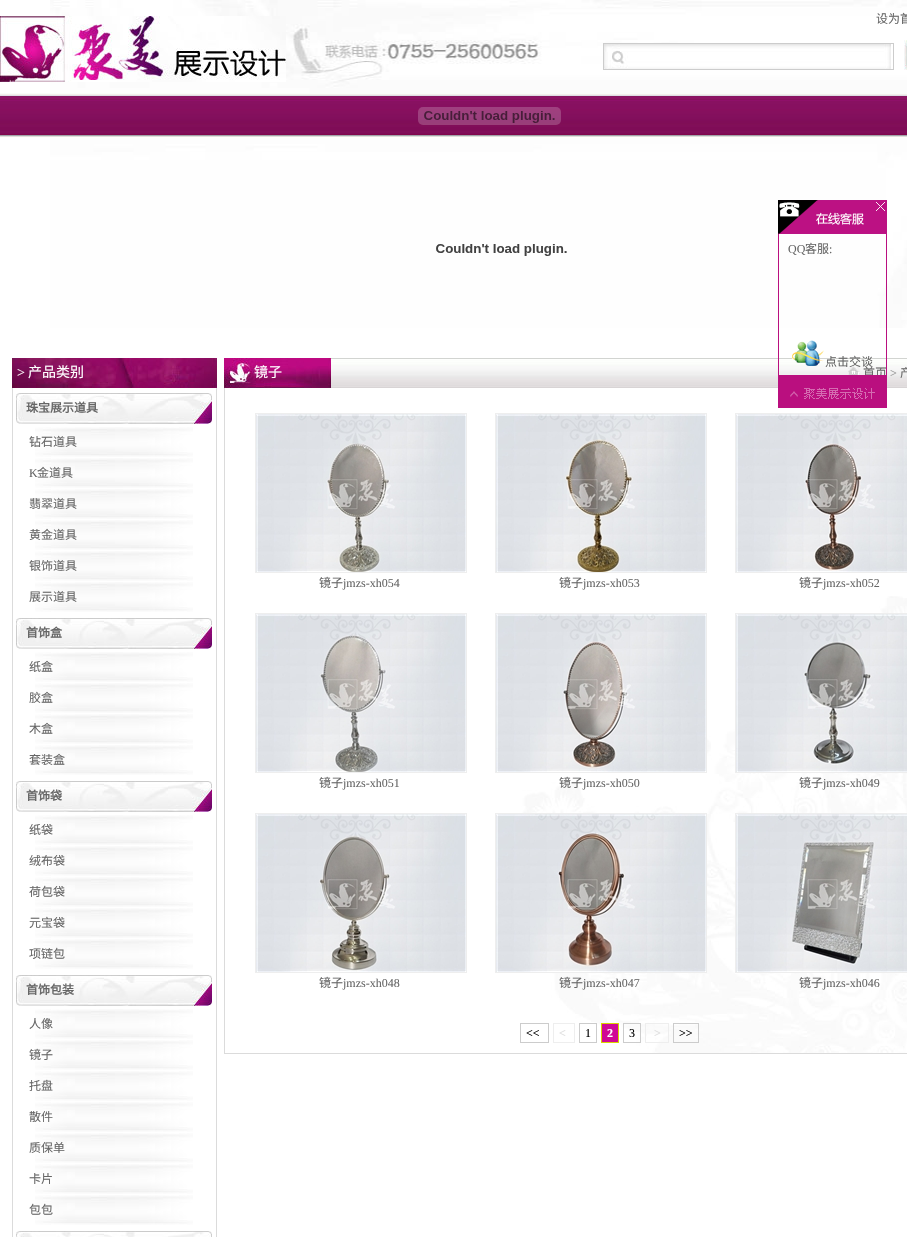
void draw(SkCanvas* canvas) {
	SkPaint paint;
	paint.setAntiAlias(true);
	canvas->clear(0xffffffff);
	canvas->drawImageRect(SkImages::DeferredFromEncodedData(SkData::MakeFromFileName("img1.png")), SkRect::MakeXYWH(50, 0, 857, 328), SkSamplingOptions());
	canvas->drawImageRect(SkImages::DeferredFromEncodedData(SkData::MakeFromFileName("img2.png")), SkRect::MakeXYWH(0, 16, 286, 66), SkSamplingOptions());
	SkFont f1(fontMgr->matchFamilyStyle("Noto Sans CJK SC", SkFontStyle::Normal()), 12);
	f1.setSubpixel(true);
	paint.setColor(0xff666666);
	canvas->drawString("设为首", 876, 23, f1, paint);
	canvas->drawImageRect(SkImages::DeferredFromEncodedData(SkData::MakeFromFileName("img3.png")), SkRect::MakeXYWH(604, 44, 287, 25), SkSamplingOptions());
	paint.setStroke(true);
	paint.setStrokeWidth(1);
	paint.setColor(0xffcccccc);
	canvas->drawRect(SkRect::MakeXYWH(603.5, 43.5, 290, 26), paint);
	canvas->drawImageRect(SkImages::DeferredFromEncodedData(SkData::MakeFromFileName("img4.png")), SkRect::MakeXYWH(904, 40, 3, 30), SkSamplingOptions());
	canvas->drawImageRect(SkImages::DeferredFromEncodedData(SkData::MakeFromFileName("img5.png")), SkRect::MakeXYWH(0, 93, 907, 45), SkSamplingOptions());
	canvas->drawImageRect(SkImages::DeferredFromEncodedData(SkData::MakeFromFileName("img6.png")), SkRect::MakeXYWH(418, 107, 143, 18), SkSamplingOptions());
	canvas->drawImageRect(SkImages::DeferredFromEncodedData(SkData::MakeFromFileName("img7.png")), SkRect::MakeXYWH(778, 200, 109, 34), SkSamplingOptions());
	canvas->drawImageRect(SkImages::DeferredFromEncodedData(SkData::MakeFromFileName("img17.png")), SkRect::MakeXYWH(331, 358, 576, 30), SkSamplingOptions());
	paint.setStroke(false);
	paint.setColor(0xffba0f7f);
	canvas->drawRect(SkRect::MakeXYWH(778, 234, 1, 141), paint);
	SkFont f2(fontMgr->matchFamilyStyle("Liberation Serif", SkFontStyle::Normal()), 12);
	f2.setSubpixel(true);
	paint.setColor(0xff666666);
	canvas->drawString("QQ", 788, 253, f2, paint);
	canvas->drawString("客服", 805, 253, f1, paint);
	canvas->drawString(":", 829, 253, f2, paint);
	canvas->drawImageRect(SkImages::DeferredFromEncodedData(SkData::MakeFromFileName("img8.png")), SkRect::MakeXYWH(792, 340, 32, 26), SkSamplingOptions());
	canvas->drawImageRect(SkImages::DeferredFromEncodedData(SkData::MakeFromFileName("img18.png")), SkRect::MakeXYWH(848, 366, 12, 9), SkSamplingOptions());
	canvas->drawString("点击交谈", 825, 366, f1, paint);
	canvas->drawString("首页", 863, 377, f1, paint);
	paint.setColor(0xffba0f7f);
	canvas->drawRect(SkRect::MakeXYWH(886, 234, 1, 141), paint);
	canvas->drawImageRect(SkImages::DeferredFromEncodedData(SkData::MakeFromFileName("img9.png")), SkRect::MakeXYWH(778, 375, 109, 33), SkSamplingOptions());
	canvas->drawImageRect(SkImages::DeferredFromEncodedData(SkData::MakeFromFileName("img11.png")), SkRect::MakeXYWH(436, 244, 131, 12), SkSamplingOptions());
	canvas->drawImageRect(SkImages::DeferredFromEncodedData(SkData::MakeFromFileName("img10.png")), SkRect::MakeXYWH(436, 244, 131, 12), SkSamplingOptions());
	canvas->drawImageRect(SkImages::DeferredFromEncodedData(SkData::MakeFromFileName("img12.png")), SkRect::MakeXYWH(12, 358, 205, 30), SkSamplingOptions());
	SkFont f3(fontMgr->matchFamilyStyle("Liberation Serif", SkFontStyle::Normal()), 14);
	f3.setSubpixel(true);
	paint.setColor(0xffffffff);
	canvas->drawString(">", 17, 377, f3, paint);
	SkFont f4(fontMgr->matchFamilyStyle("Noto Sans CJK SC", SkFontStyle::Normal()), 14);
	f4.setSubpixel(true);
	canvas->drawString("产品类别", 28, 377, f4, paint);
	paint.setColor(0xffdbdbdb);
	canvas->drawRect(SkRect::MakeXYWH(216, 388, 1, 849), paint);
	canvas->drawRect(SkRect::MakeXYWH(12, 388, 1, 849), paint);
	canvas->drawImageRect(SkImages::DeferredFromEncodedData(SkData::MakeFromFileName("img13.png")), SkRect::MakeXYWH(16, 393, 196, 31), SkSamplingOptions());
	SkFont f5(fontMgr->matchFamilyStyle("Noto Sans CJK SC", SkFontStyle::Bold()), 12);
	f5.setSubpixel(true);
	paint.setColor(0xff666666);
	canvas->drawString("珠宝展示道具", 26, 412, f5, paint);
	canvas->drawImageRect(SkImages::DeferredFromEncodedData(SkData::MakeFromFileName("img14.png")), SkRect::MakeXYWH(35, 427, 158, 30), SkSamplingOptions());
	canvas->drawString("钻石道具", 29, 446, f1, paint);
	canvas->drawImageRect(SkImages::DeferredFromEncodedData(SkData::MakeFromFileName("img14.png")), SkRect::MakeXYWH(35, 458, 158, 30), SkSamplingOptions());
	canvas->drawString("K", 29, 477, f2, paint);
	canvas->drawString("金道具", 37, 477, f1, paint);
	canvas->drawImageRect(SkImages::DeferredFromEncodedData(SkData::MakeFromFileName("img14.png")), SkRect::MakeXYWH(35, 489, 158, 30), SkSamplingOptions());
	canvas->drawString("翡翠道具", 29, 508, f1, paint);
	canvas->drawImageRect(SkImages::DeferredFromEncodedData(SkData::MakeFromFileName("img14.png")), SkRect::MakeXYWH(35, 520, 158, 30), SkSamplingOptions());
	canvas->drawString("黄金道具", 29, 539, f1, paint);
	canvas->drawImageRect(SkImages::DeferredFromEncodedData(SkData::MakeFromFileName("img14.png")), SkRect::MakeXYWH(35, 551, 158, 30), SkSamplingOptions());
	canvas->drawString("银饰道具", 29, 570, f1, paint);
	canvas->drawImageRect(SkImages::DeferredFromEncodedData(SkData::MakeFromFileName("img14.png")), SkRect::MakeXYWH(35, 582, 158, 30), SkSamplingOptions());
	canvas->drawString("展示道具", 29, 601, f1, paint);
	canvas->drawImageRect(SkImages::DeferredFromEncodedData(SkData::MakeFromFileName("img13.png")), SkRect::MakeXYWH(16, 618, 196, 31), SkSamplingOptions());
	canvas->drawString("首饰盒", 26, 637, f5, paint);
	canvas->drawImageRect(SkImages::DeferredFromEncodedData(SkData::MakeFromFileName("img14.png")), SkRect::MakeXYWH(35, 652, 158, 30), SkSamplingOptions());
	canvas->drawString("纸盒", 29, 671, f1, paint);
	canvas->drawImageRect(SkImages::DeferredFromEncodedData(SkData::MakeFromFileName("img14.png")), SkRect::MakeXYWH(35, 683, 158, 30), SkSamplingOptions());
	canvas->drawString("胶盒", 29, 702, f1, paint);
	canvas->drawImageRect(SkImages::DeferredFromEncodedData(SkData::MakeFromFileName("img14.png")), SkRect::MakeXYWH(35, 714, 158, 30), SkSamplingOptions());
	canvas->drawString("木盒", 29, 733, f1, paint);
	canvas->drawImageRect(SkImages::DeferredFromEncodedData(SkData::MakeFromFileName("img14.png")), SkRect::MakeXYWH(35, 745, 158, 30), SkSamplingOptions());
	canvas->drawString("套装盒", 29, 764, f1, paint);
	canvas->drawImageRect(SkImages::DeferredFromEncodedData(SkData::MakeFromFileName("img13.png")), SkRect::MakeXYWH(16, 781, 196, 31), SkSamplingOptions());
	canvas->drawString("首饰袋", 26, 800, f5, paint);
	canvas->drawImageRect(SkImages::DeferredFromEncodedData(SkData::MakeFromFileName("img14.png")), SkRect::MakeXYWH(35, 815, 158, 30), SkSamplingOptions());
	canvas->drawString("纸袋", 29, 834, f1, paint);
	canvas->drawImageRect(SkImages::DeferredFromEncodedData(SkData::MakeFromFileName("img14.png")), SkRect::MakeXYWH(35, 846, 158, 30), SkSamplingOptions());
	canvas->drawString("绒布袋", 29, 865, f1, paint);
	canvas->drawImageRect(SkImages::DeferredFromEncodedData(SkData::MakeFromFileName("img14.png")), SkRect::MakeXYWH(35, 877, 158, 30), SkSamplingOptions());
	canvas->drawString("荷包袋", 29, 896, f1, paint);
	canvas->drawImageRect(SkImages::DeferredFromEncodedData(SkData::MakeFromFileName("img14.png")), SkRect::MakeXYWH(35, 908, 158, 30), SkSamplingOptions());
	canvas->drawString("元宝袋", 29, 927, f1, paint);
	canvas->drawImageRect(SkImages::DeferredFromEncodedData(SkData::MakeFromFileName("img14.png")), SkRect::MakeXYWH(35, 939, 158, 30), SkSamplingOptions());
	canvas->drawString("项链包", 29, 958, f1, paint);
	canvas->drawImageRect(SkImages::DeferredFromEncodedData(SkData::MakeFromFileName("img13.png")), SkRect::MakeXYWH(16, 975, 196, 31), SkSamplingOptions());
	canvas->drawString("首饰包装", 26, 994, f5, paint);
	canvas->drawImageRect(SkImages::DeferredFromEncodedData(SkData::MakeFromFileName("img14.png")), SkRect::MakeXYWH(35, 1009, 158, 30), SkSamplingOptions());
	canvas->drawString("人像", 29, 1028, f1, paint);
	canvas->drawImageRect(SkImages::DeferredFromEncodedData(SkData::MakeFromFileName("img14.png")), SkRect::MakeXYWH(35, 1040, 158, 30), SkSamplingOptions());
	canvas->drawString("镜子", 29, 1059, f1, paint);
	canvas->drawImageRect(SkImages::DeferredFromEncodedData(SkData::MakeFromFileName("img14.png")), SkRect::MakeXYWH(35, 1071, 158, 30), SkSamplingOptions());
	canvas->drawString("托盘", 29, 1090, f1, paint);
	canvas->drawImageRect(SkImages::DeferredFromEncodedData(SkData::MakeFromFileName("img14.png")), SkRect::MakeXYWH(35, 1102, 158, 30), SkSamplingOptions());
	canvas->drawString("散件", 29, 1121, f1, paint);
	canvas->drawImageRect(SkImages::DeferredFromEncodedData(SkData::MakeFromFileName("img14.png")), SkRect::MakeXYWH(35, 1133, 158, 30), SkSamplingOptions());
	canvas->drawString("质保单", 29, 1152, f1, paint);
	canvas->drawImageRect(SkImages::DeferredFromEncodedData(SkData::MakeFromFileName("img14.png")), SkRect::MakeXYWH(35, 1164, 158, 30), SkSamplingOptions());
	canvas->drawString("卡片", 29, 1183, f1, paint);
	canvas->drawImageRect(SkImages::DeferredFromEncodedData(SkData::MakeFromFileName("img14.png")), SkRect::MakeXYWH(35, 1195, 158, 30), SkSamplingOptions());
	canvas->drawString("包包", 29, 1214, f1, paint);
	canvas->drawImageRect(SkImages::DeferredFromEncodedData(SkData::MakeFromFileName("img15.png")), SkRect::MakeXYWH(16, 1231, 196, 6), SkSamplingOptions());
	canvas->drawImageRect(SkImages::DeferredFromEncodedData(SkData::MakeFromFileName("img16.png")), SkRect::MakeXYWH(224, 358, 107, 30), SkSamplingOptions());
	paint.setColor(0xffffffff);
	canvas->drawString("镜子", 254, 377, f4, paint);
	paint.setColor(0xff999999);
	canvas->drawString(">", 890, 377, f2, paint);
	paint.setColor(0xff666666);
	canvas->drawString("产", 900, 377, f1, paint);
	canvas->drawImageRect(SkImages::DeferredFromEncodedData(SkData::MakeFromFileName("img19.png")), SkRect::MakeXYWH(521, 596, 386, 457), SkSamplingOptions());
	paint.setColor(0xffdbdbdb);
	canvas->drawRect(SkRect::MakeXYWH(224, 1053, 683, 1), paint);
	canvas->drawRect(SkRect::MakeXYWH(224, 388, 1, 666), paint);
	paint.setStroke(true);
	paint.setColor(0xffeeeeee);
	canvas->drawRect(SkRect::MakeXYWH(255.5, 413.5, 211, 159), paint);
	canvas->drawImageRect(SkImages::DeferredFromEncodedData(SkData::MakeFromFileName("img20.png")), SkRect::MakeXYWH(256, 414, 210, 158), SkSamplingOptions());
	paint.setStroke(false);
	paint.setColor(0xff666666);
	canvas->drawString("镜子", 319, 587, f1, paint);
	canvas->drawString("jmzs-xh054", 343, 587, f2, paint);
	paint.setStroke(true);
	paint.setColor(0xffeeeeee);
	canvas->drawRect(SkRect::MakeXYWH(495.5, 413.5, 211, 159), paint);
	canvas->drawImageRect(SkImages::DeferredFromEncodedData(SkData::MakeFromFileName("img21.png")), SkRect::MakeXYWH(496, 414, 210, 158), SkSamplingOptions());
	paint.setStroke(false);
	paint.setColor(0xff666666);
	canvas->drawString("镜子", 559, 587, f1, paint);
	canvas->drawString("jmzs-xh053", 583, 587, f2, paint);
	paint.setStroke(true);
	paint.setColor(0xffeeeeee);
	canvas->drawRect(SkRect::MakeXYWH(735.5, 413.5, 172, 159), paint);
	canvas->drawImageRect(SkImages::DeferredFromEncodedData(SkData::MakeFromFileName("img22.png")), SkRect::MakeXYWH(736, 414, 171, 158), SkSamplingOptions());
	paint.setStroke(false);
	paint.setColor(0xff666666);
	canvas->drawString("镜子", 799, 587, f1, paint);
	canvas->drawString("jmzs-xh052", 823, 587, f2, paint);
	paint.setStroke(true);
	paint.setColor(0xffeeeeee);
	canvas->drawRect(SkRect::MakeXYWH(255.5, 613.5, 211, 159), paint);
	canvas->drawImageRect(SkImages::DeferredFromEncodedData(SkData::MakeFromFileName("img23.png")), SkRect::MakeXYWH(256, 614, 210, 158), SkSamplingOptions());
	paint.setStroke(false);
	paint.setColor(0xff666666);
	canvas->drawString("镜子", 319, 787, f1, paint);
	canvas->drawString("jmzs-xh051", 343, 787, f2, paint);
	paint.setStroke(true);
	paint.setColor(0xffeeeeee);
	canvas->drawRect(SkRect::MakeXYWH(495.5, 613.5, 211, 159), paint);
	canvas->drawImageRect(SkImages::DeferredFromEncodedData(SkData::MakeFromFileName("img24.png")), SkRect::MakeXYWH(496, 614, 210, 158), SkSamplingOptions());
	paint.setStroke(false);
	paint.setColor(0xff666666);
	canvas->drawString("镜子", 559, 787, f1, paint);
	canvas->drawString("jmzs-xh050", 583, 787, f2, paint);
	paint.setStroke(true);
	paint.setColor(0xffeeeeee);
	canvas->drawRect(SkRect::MakeXYWH(735.5, 613.5, 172, 159), paint);
	canvas->drawImageRect(SkImages::DeferredFromEncodedData(SkData::MakeFromFileName("img25.png")), SkRect::MakeXYWH(736, 614, 171, 158), SkSamplingOptions());
	paint.setStroke(false);
	paint.setColor(0xff666666);
	canvas->drawString("镜子", 799, 787, f1, paint);
	canvas->drawString("jmzs-xh049", 823, 787, f2, paint);
	paint.setStroke(true);
	paint.setColor(0xffeeeeee);
	canvas->drawRect(SkRect::MakeXYWH(255.5, 813.5, 211, 159), paint);
	canvas->drawImageRect(SkImages::DeferredFromEncodedData(SkData::MakeFromFileName("img26.png")), SkRect::MakeXYWH(256, 814, 210, 158), SkSamplingOptions());
	paint.setStroke(false);
	paint.setColor(0xff666666);
	canvas->drawString("镜子", 319, 987, f1, paint);
	canvas->drawString("jmzs-xh048", 343, 987, f2, paint);
	paint.setStroke(true);
	paint.setColor(0xffeeeeee);
	canvas->drawRect(SkRect::MakeXYWH(495.5, 813.5, 211, 159), paint);
	canvas->drawImageRect(SkImages::DeferredFromEncodedData(SkData::MakeFromFileName("img27.png")), SkRect::MakeXYWH(496, 814, 210, 158), SkSamplingOptions());
	paint.setStroke(false);
	paint.setColor(0xff666666);
	canvas->drawString("镜子", 559, 987, f1, paint);
	canvas->drawString("jmzs-xh047", 583, 987, f2, paint);
	paint.setStroke(true);
	paint.setColor(0xffeeeeee);
	canvas->drawRect(SkRect::MakeXYWH(735.5, 813.5, 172, 159), paint);
	canvas->drawImageRect(SkImages::DeferredFromEncodedData(SkData::MakeFromFileName("img28.png")), SkRect::MakeXYWH(736, 814, 171, 158), SkSamplingOptions());
	paint.setStroke(false);
	paint.setColor(0xff666666);
	canvas->drawString("镜子", 799, 987, f1, paint);
	canvas->drawString("jmzs-xh046", 823, 987, f2, paint);
	paint.setStroke(true);
	paint.setColor(0xffcccccc);
	canvas->drawRect(SkRect::MakeXYWH(520.5, 1023.5, 28, 19), paint);
	paint.setStroke(false);
	paint.setColor(0xff000000);
	canvas->drawString("<<", 526, 1037, f2, paint);
	paint.setStroke(true);
	paint.setColor(0xffeeeeee);
	canvas->drawRect(SkRect::MakeXYWH(553.5, 1023.5, 21, 19), paint);
	paint.setStroke(false);
	paint.setColor(0xffdddddd);
	canvas->drawString("<", 559, 1037, f2, paint);
	paint.setStroke(true);
	paint.setColor(0xffcccccc);
	canvas->drawRect(SkRect::MakeXYWH(579.5, 1023.5, 17, 19), paint);
	paint.setStroke(false);
	paint.setColor(0xff000000);
	canvas->drawString("1", 585, 1037, f2, paint);
	paint.setColor(0xffd00795);
	canvas->drawRect(SkRect::MakeXYWH(601.5, 1023.5, 17, 19), paint);
	paint.setStroke(true);
	paint.setColor(0xffd9d300);
	canvas->drawRect(SkRect::MakeXYWH(601.5, 1023.5, 17, 19), paint);
	SkFont f6(fontMgr->matchFamilyStyle("Liberation Serif", SkFontStyle::Bold()), 12);
	f6.setSubpixel(true);
	paint.setStroke(false);
	paint.setColor(0xffffffff);
	canvas->drawString("2", 607, 1037, f6, paint);
	paint.setStroke(true);
	paint.setColor(0xffcccccc);
	canvas->drawRect(SkRect::MakeXYWH(623.5, 1023.5, 17, 19), paint);
	paint.setStroke(false);
	paint.setColor(0xff000000);
	canvas->drawString("3", 629, 1037, f2, paint);
	paint.setStroke(true);
	paint.setColor(0xffeeeeee);
	canvas->drawRect(SkRect::MakeXYWH(645.5, 1023.5, 23, 19), paint);
	paint.setStroke(false);
	paint.setColor(0xffdddddd);
	canvas->drawString(">", 654, 1037, f2, paint);
	paint.setStroke(true);
	paint.setColor(0xffcccccc);
	canvas->drawRect(SkRect::MakeXYWH(673.5, 1023.5, 25, 19), paint);
	paint.setStroke(false);
	paint.setColor(0xff000000);
	canvas->drawString(">>", 679, 1037, f2, paint);
}
